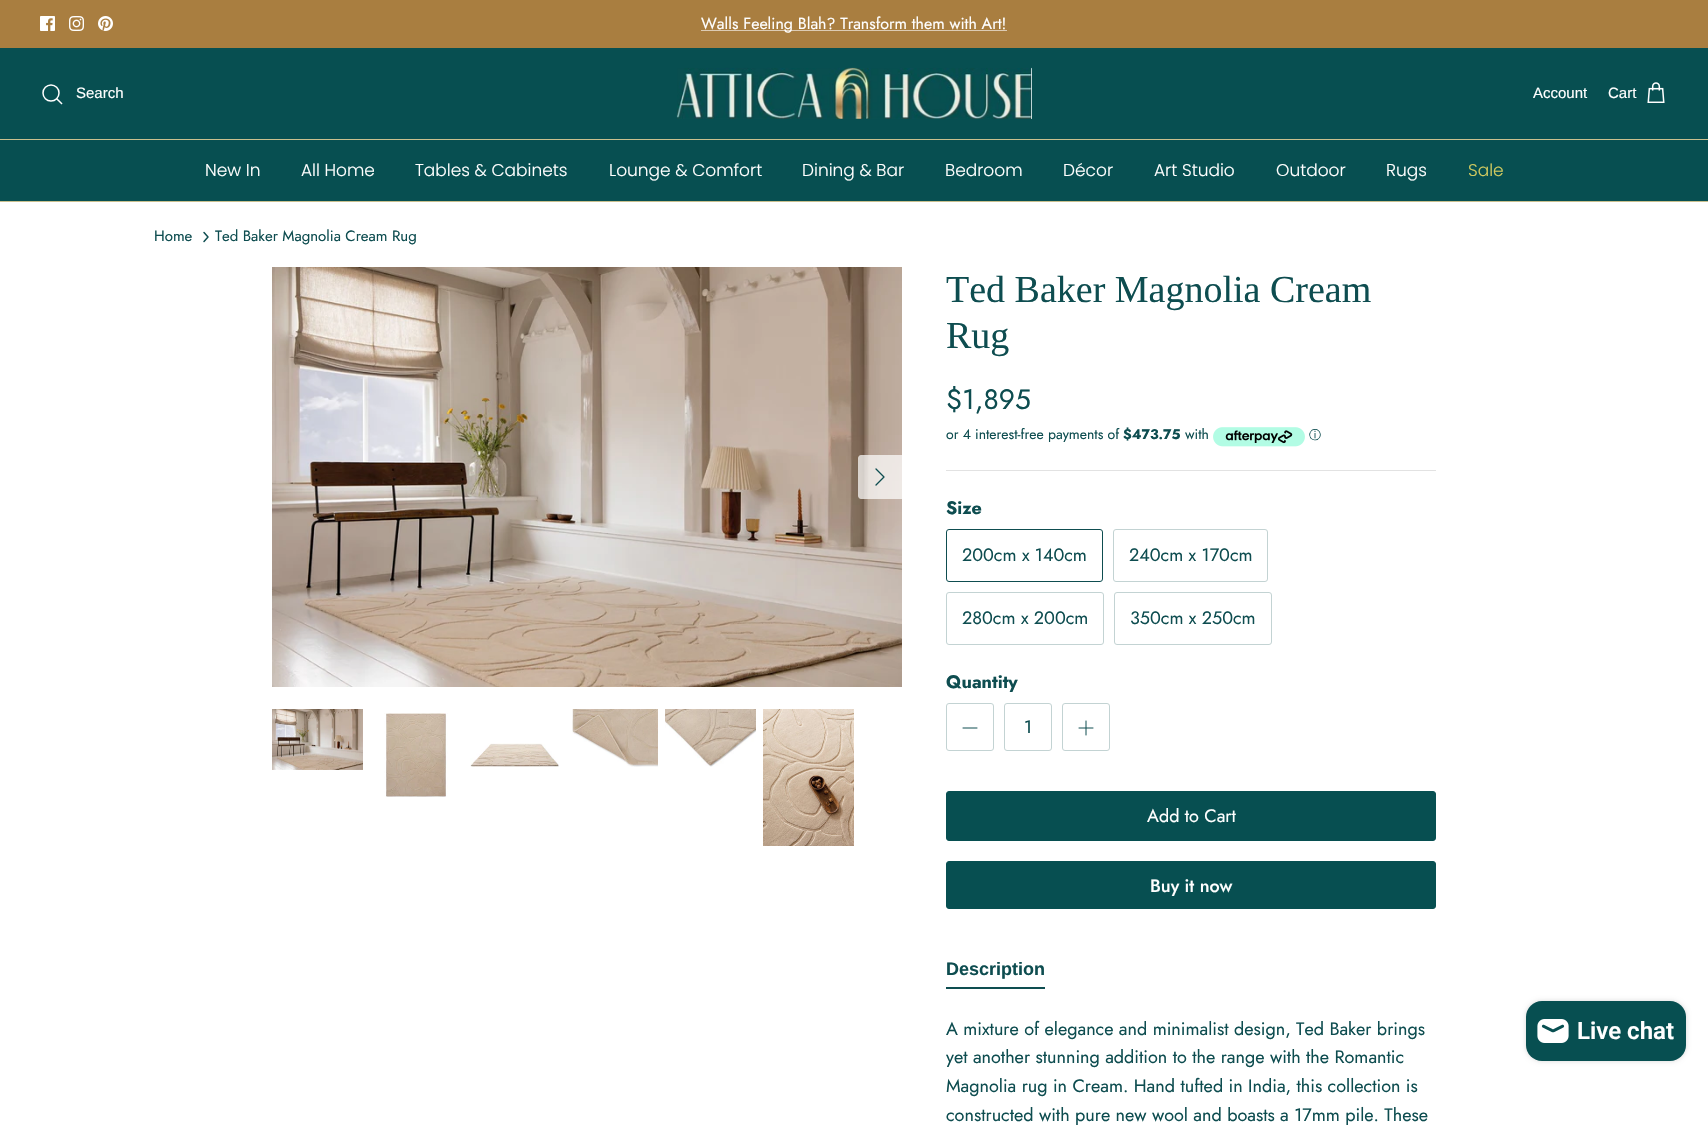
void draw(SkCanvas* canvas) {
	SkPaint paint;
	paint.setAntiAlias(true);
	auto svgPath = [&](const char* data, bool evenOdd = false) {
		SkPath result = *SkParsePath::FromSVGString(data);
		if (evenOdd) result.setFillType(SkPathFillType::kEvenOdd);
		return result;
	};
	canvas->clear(0xffffffff);
	paint.setColor(0xffa97e40);
	canvas->drawRect(SkRect::MakeXYWH(0, 0, 1708, 48), paint);
	canvas->drawImageRect(SkImages::DeferredFromEncodedData(SkData::MakeFromFileName("img1.png")), SkRect::MakeXYWH(40, 16, 15, 15), SkSamplingOptions());
	canvas->drawImageRect(SkImages::DeferredFromEncodedData(SkData::MakeFromFileName("img2.png")), SkRect::MakeXYWH(69, 16, 15, 15), SkSamplingOptions());
	canvas->drawImageRect(SkImages::DeferredFromEncodedData(SkData::MakeFromFileName("img3.png")), SkRect::MakeXYWH(98, 16, 15, 15), SkSamplingOptions());
	paint.setColor(0xffddcbb3);
	canvas->drawRect(SkRect::MakeXYWH(701, 30, 306, 1), paint);
	SkFont f1(fontMgr->matchFamilyStyle("Jost", SkFontStyle::Normal()), 16);
	f1.setSubpixel(true);
	paint.setColor(0xffffffff);
	canvas->drawString("Walls Feeling Blah? Transform them with Art!", 701, 29, f1, paint);
	paint.setColor(0xff074f51);
	canvas->drawRect(SkRect::MakeXYWH(0, 48, 1708, 91), paint);
	paint.setColor(0xffc9c08e);
	canvas->drawRect(SkRect::MakeXYWH(0, 139, 1708, 1), paint);
	paint.setStroke(true);
	paint.setStrokeWidth(1.5);
	paint.setColor(0xffffffff);
	canvas->drawCircle(51, 93, 8, paint);
	SkFont f2(fontMgr->matchFamilyStyle("Liberation Sans", SkFontStyle::Normal()), 15);
	f2.setSubpixel(true);
	paint.setStroke(false);
	canvas->drawString("Search", 76, 98, f2, paint);
	paint.setStroke(true);
	paint.setStrokeCap(SkPaint::kSquare_Cap);
	canvas->drawPath(svgPath("M57 99L61.5 103.5"), paint);
	canvas->drawImageRect(SkImages::DeferredFromEncodedData(SkData::MakeFromFileName("img4.png")), SkRect::MakeXYWH(676, 67, 356, 52), SkSamplingOptions());
	paint.setStroke(false);
	canvas->drawString("Account", 1533, 98, f2, paint);
	canvas->drawString("Cart", 1608, 98, f2, paint);
	canvas->drawImageRect(SkImages::DeferredFromEncodedData(SkData::MakeFromFileName("img5.png")), SkRect::MakeXYWH(1647, 82, 18, 21), SkSamplingOptions());
	paint.setColor(0xffc9c08e);
	canvas->drawRect(SkRect::MakeXYWH(0, 201, 1708, 1), paint);
	paint.setColor(0xff074f51);
	canvas->drawRect(SkRect::MakeXYWH(0, 140, 1708, 61), paint);
	SkFont f3(fontMgr->matchFamilyStyle("Poppins", SkFontStyle(300, SkFontStyle::kNormal_Width, SkFontStyle::kUpright_Slant)), 17);
	f3.setSubpixel(true);
	paint.setColor(0xffffffff);
	canvas->drawString("New In", 205, 176, f3, paint);
	canvas->drawString("All Home", 301, 176, f3, paint);
	canvas->drawString("Tables & Cabinets", 415, 176, f3, paint);
	canvas->drawString("Lounge & Comfort", 609, 176, f3, paint);
	canvas->drawString("Dining & Bar", 802, 176, f3, paint);
	canvas->drawString("Bedroom", 945, 176, f3, paint);
	canvas->drawString("Décor", 1063, 176, f3, paint);
	canvas->drawString("Art Studio", 1154, 176, f3, paint);
	canvas->drawString("Outdoor", 1276, 176, f3, paint);
	canvas->drawString("Rugs", 1386, 176, f3, paint);
	paint.setColor(0xffd1ca5f);
	canvas->drawString("Sale", 1468, 176, f3, paint);
	SkFont f4(fontMgr->matchFamilyStyle("Jost", SkFontStyle::Normal()), 15);
	f4.setSubpixel(true);
	paint.setColor(0xff0e4d50);
	canvas->drawString("Home", 154, 241, f4, paint);
	paint.setStroke(true);
	paint.setStrokeCap(SkPaint::kRound_Cap);
	paint.setStrokeJoin(SkPaint::kRound_Join);
	canvas->drawPath(svgPath("M204 241.5L208 237L204 232.5"), paint);
	paint.setStroke(false);
	canvas->drawString("Ted Baker Magnolia Cream Rug", 215, 241, f4, paint);
	canvas->drawImageRect(SkImages::DeferredFromEncodedData(SkData::MakeFromFileName("img6.png")), SkRect::MakeXYWH(272, 267, 630, 420), SkSamplingOptions());
	paint.setColor(0xb3ffffff);
	canvas->drawPath(svgPath("M861 455H902V499H861C859.5 499 858 497.5 858 496V458C858 456.5 859.5 455 861 455Z"), paint);
	paint.setStroke(true);
	paint.setStrokeWidth(1.3);
	paint.setColor(0xff0e4d50);
	canvas->drawPath(svgPath("M876 485L884 477L876 469"), paint);
	canvas->drawImageRect(SkImages::DeferredFromEncodedData(SkData::MakeFromFileName("img7.png")), SkRect::MakeXYWH(272, 709, 91, 61), SkSamplingOptions());
	canvas->drawImageRect(SkImages::DeferredFromEncodedData(SkData::MakeFromFileName("img8.png")), SkRect::MakeXYWH(384, 713, 64, 84), SkSamplingOptions());
	canvas->drawImageRect(SkImages::DeferredFromEncodedData(SkData::MakeFromFileName("img9.png")), SkRect::MakeXYWH(470, 743, 89, 24), SkSamplingOptions());
	canvas->drawImageRect(SkImages::DeferredFromEncodedData(SkData::MakeFromFileName("img10.png")), SkRect::MakeXYWH(572, 709, 86, 58), SkSamplingOptions());
	canvas->drawImageRect(SkImages::DeferredFromEncodedData(SkData::MakeFromFileName("img11.png")), SkRect::MakeXYWH(665, 709, 91, 58), SkSamplingOptions());
	canvas->drawImageRect(SkImages::DeferredFromEncodedData(SkData::MakeFromFileName("img12.png")), SkRect::MakeXYWH(763, 709, 91, 137), SkSamplingOptions());
	SkFont f5(fontMgr->matchFamilyStyle("Liberation Serif", SkFontStyle::Normal()), 38);
	f5.setSubpixel(true);
	paint.setStroke(false);
	canvas->drawString("Ted Baker Magnolia Cream", 946, 302, f5, paint);
	canvas->drawString("Rug", 946, 348, f5, paint);
	SkFont f6(fontMgr->matchFamilyStyle("Jost", SkFontStyle::Normal()), 28);
	f6.setSubpixel(true);
	canvas->drawString("$1,895", 946, 409, f6, paint);
	SkFont f7(fontMgr->matchFamilyStyle("Jost", SkFontStyle::Normal()), 14);
	f7.setSubpixel(true);
	canvas->drawString("or 4 interest-free payments of", 946, 439, f7, paint);
	SkFont f8(fontMgr->matchFamilyStyle("Jost", SkFontStyle::Bold()), 14);
	f8.setSubpixel(true);
	canvas->drawString("$473.75", 1123, 439, f8, paint);
	canvas->drawString("with", 1185, 439, f7, paint);
	canvas->drawImageRect(SkImages::DeferredFromEncodedData(SkData::MakeFromFileName("img13.png")), SkRect::MakeXYWH(1213, 427, 92, 20), SkSamplingOptions());
	SkFont f9(fontMgr->matchFamilyStyle("WenQuanYi Zen Hei", SkFontStyle(500, SkFontStyle::kNormal_Width, SkFontStyle::kUpright_Slant)), 12);
	f9.setSubpixel(true);
	canvas->drawString("ⓘ", 1309, 439, f9, paint);
	paint.setColor(0xffe2e2e2);
	canvas->drawRect(SkRect::MakeXYWH(946, 470, 490, 1), paint);
	SkFont f10(fontMgr->matchFamilyStyle("Jost", SkFontStyle::Bold()), 18);
	f10.setSubpixel(true);
	paint.setColor(0xff0e4d50);
	canvas->drawString("Size", 946, 514, f10, paint);
	paint.setStroke(true);
	paint.setStrokeWidth(1);
	paint.setStrokeCap(SkPaint::kButt_Cap);
	paint.setStrokeJoin(SkPaint::kMiter_Join);
	canvas->drawRoundRect(SkRect::MakeXYWH(946.5, 529.5, 156, 52), 2.5, 2.5, paint);
	SkFont f11(fontMgr->matchFamilyStyle("Jost", SkFontStyle::Normal()), 18);
	f11.setSubpixel(true);
	paint.setStroke(false);
	canvas->drawString("200cm x 140cm", 962, 561, f11, paint);
	paint.setStroke(true);
	paint.setColor(0xffc3d3d3);
	canvas->drawRoundRect(SkRect::MakeXYWH(1113.5, 529.5, 154, 52), 2.5, 2.5, paint);
	paint.setStroke(false);
	paint.setColor(0xff0e4d50);
	canvas->drawString("240cm x 170cm", 1129, 561, f11, paint);
	paint.setStroke(true);
	paint.setColor(0xffc3d3d3);
	canvas->drawRoundRect(SkRect::MakeXYWH(946.5, 592.5, 157, 52), 2.5, 2.5, paint);
	paint.setStroke(false);
	paint.setColor(0xff0e4d50);
	canvas->drawString("280cm x 200cm", 962, 624, f11, paint);
	paint.setStroke(true);
	paint.setColor(0xffc3d3d3);
	canvas->drawRoundRect(SkRect::MakeXYWH(1114.5, 592.5, 157, 52), 2.5, 2.5, paint);
	paint.setStroke(false);
	paint.setColor(0xff0e4d50);
	canvas->drawString("350cm x 250cm", 1130, 624, f11, paint);
	canvas->drawString("Quantity", 946, 688, f10, paint);
	paint.setStroke(true);
	paint.setColor(0xffc3d3d3);
	canvas->drawRoundRect(SkRect::MakeXYWH(946.5, 703.5, 47, 47), 2.5, 2.5, paint);
	paint.setStrokeCap(SkPaint::kRound_Cap);
	paint.setStrokeJoin(SkPaint::kRound_Join);
	paint.setColor(0xff0e4d50);
	canvas->drawPath(svgPath("M963 728H977"), paint);
	paint.setStrokeCap(SkPaint::kButt_Cap);
	paint.setStrokeJoin(SkPaint::kMiter_Join);
	paint.setColor(0xffc3d3d3);
	canvas->drawRoundRect(SkRect::MakeXYWH(1004.5, 703.5, 47, 47), 2.5, 2.5, paint);
	paint.setStroke(false);
	paint.setColor(0xff0e4d50);
	canvas->drawString("1", 1024, 733, f11, paint);
	paint.setStroke(true);
	paint.setColor(0xffc3d3d3);
	canvas->drawRoundRect(SkRect::MakeXYWH(1062.5, 703.5, 47, 47), 2.5, 2.5, paint);
	paint.setStrokeCap(SkPaint::kRound_Cap);
	paint.setStrokeJoin(SkPaint::kRound_Join);
	paint.setColor(0xff0e4d50);
	canvas->drawPath(svgPath("M1086 721V735M1079 728H1093"), paint);
	paint.setStroke(false);
	paint.setColor(0xff074f51);
	canvas->drawRoundRect(SkRect::MakeXYWH(946.5, 791.5, 489, 49), 2.5, 2.5, paint);
	paint.setStroke(true);
	paint.setStrokeCap(SkPaint::kButt_Cap);
	paint.setStrokeJoin(SkPaint::kMiter_Join);
	canvas->drawRoundRect(SkRect::MakeXYWH(946.5, 791.5, 489, 49), 2.5, 2.5, paint);
	paint.setStroke(false);
	paint.setColor(0xffffffff);
	canvas->drawString("Add to Cart", 1147, 822, f11, paint);
	paint.setColor(0xff074f51);
	canvas->drawRoundRect(SkRect::MakeXYWH(946.5, 861.5, 489, 47), 2.5, 2.5, paint);
	paint.setStroke(true);
	canvas->drawRoundRect(SkRect::MakeXYWH(946.5, 861.5, 489, 47), 2.5, 2.5, paint);
	SkFont f12(fontMgr->matchFamilyStyle("Jost", SkFontStyle(500, SkFontStyle::kNormal_Width, SkFontStyle::kUpright_Slant)), 18);
	f12.setSubpixel(true);
	paint.setStroke(false);
	paint.setColor(0xffffffff);
	canvas->drawString("Buy it now", 1150, 892, f12, paint);
	paint.setColor(0xff0e4d50);
	canvas->drawRect(SkRect::MakeXYWH(946, 987, 99, 2), paint);
	SkFont f13(fontMgr->matchFamilyStyle("Liberation Sans", SkFontStyle::Bold()), 18);
	f13.setSubpixel(true);
	canvas->drawString("Description", 946, 975, f13, paint);
	canvas->drawString("A mixture of elegance and minimalist design, Ted Baker brings", 946, 1035, f11, paint);
	canvas->drawString("yet another stunning addition to the range with the Romantic", 946, 1063, f11, paint);
	canvas->drawString("Magnolia rug in Cream. Hand tufted in India, this collection is", 946, 1092, f11, paint);
	canvas->drawString("constructed with pure new wool and boasts a 17mm pile. These", 946, 1121, f11, paint);
	paint.setColor(0x26000000);
	paint.setMaskFilter(SkMaskFilter::MakeBlur(kNormal_SkBlurStyle, 2.5));
	canvas->drawRoundRect(SkRect::MakeXYWH(1526, 1001, 160, 60), 16, 16, paint);
	paint.setMaskFilter(nullptr);
	paint.setColor(0xff074f51);
	canvas->drawRoundRect(SkRect::MakeXYWH(1526, 1001, 160, 60), 16, 16, paint);
	canvas->drawImageRect(SkImages::DeferredFromEncodedData(SkData::MakeFromFileName("img14.png")), SkRect::MakeXYWH(1537, 1019, 32, 24), SkSamplingOptions());
	SkFont f14(fontMgr->matchFamilyStyle("Roboto", SkFontStyle(600, SkFontStyle::kNormal_Width, SkFontStyle::kUpright_Slant)), 24);
	f14.setSubpixel(true);
	paint.setColor(0xffffffff);
	canvas->drawString("Live chat", 1577, 1039, f14, paint);
}
